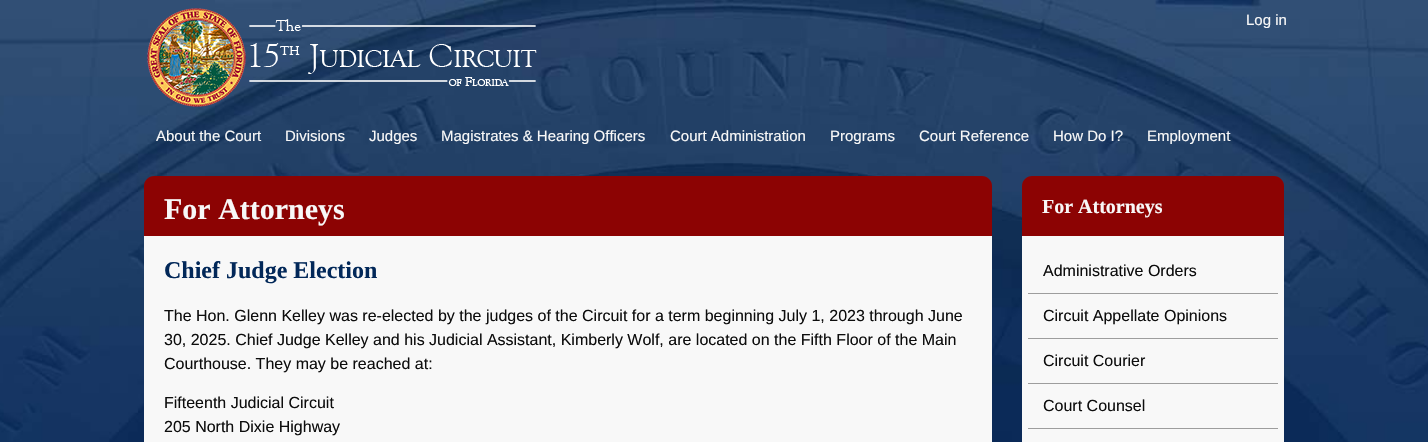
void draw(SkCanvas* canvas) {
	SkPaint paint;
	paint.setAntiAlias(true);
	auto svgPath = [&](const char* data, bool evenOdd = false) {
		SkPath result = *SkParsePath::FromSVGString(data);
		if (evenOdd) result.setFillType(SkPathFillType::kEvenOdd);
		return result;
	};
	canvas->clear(0xffffffff);
	canvas->drawImageRect(SkImages::DeferredFromEncodedData(SkData::MakeFromFileName("img1.png")), SkRect::MakeXYWH(0, 0, 1428, 442), SkSamplingOptions());
	canvas->drawImageRect(SkImages::DeferredFromEncodedData(SkData::MakeFromFileName("img2.png")), SkRect::MakeXYWH(147, 8, 390, 99), SkSamplingOptions());
	SkFont f1(fontMgr->matchFamilyStyle("Liberation Sans", SkFontStyle::Normal()), 15);
	f1.setSubpixel(true);
	paint.setColor(0xfff8f8f8);
	canvas->drawString("Log in", 1246, 25, f1, paint);
	canvas->drawString("About the Court", 156, 141, f1, paint);
	canvas->drawString("Divisions", 285, 141, f1, paint);
	canvas->drawString("Judges", 369, 141, f1, paint);
	canvas->drawString("Magistrates & Hearing Officers", 441, 141, f1, paint);
	canvas->drawString("Court Administration", 670, 141, f1, paint);
	canvas->drawString("Programs", 830, 141, f1, paint);
	canvas->drawString("Court Reference", 919, 141, f1, paint);
	canvas->drawString("How Do I?", 1053, 141, f1, paint);
	canvas->drawString("Employment", 1147, 141, f1, paint);
	paint.setColor(0xff8c0303);
	canvas->drawPath(svgPath("M154 176H982C987.5 176 992 180.5 992 186V236H144V186C144 180.5 148.5 176 154 176Z"), paint);
	SkFont f2(fontMgr->matchFamilyStyle("Liberation Serif", SkFontStyle::Bold()), 30);
	f2.setSubpixel(true);
	paint.setColor(0xfff8f8f8);
	canvas->drawString("For Attorneys", 164, 219, f2, paint);
	canvas->drawRect(SkRect::MakeXYWH(144, 236, 848, 206), paint);
	SkFont f3(fontMgr->matchFamilyStyle("Liberation Serif", SkFontStyle::Bold()), 24);
	f3.setSubpixel(true);
	paint.setColor(0xff022859);
	canvas->drawString("Chief Judge Election", 164, 278, f3, paint);
	SkFont f4(fontMgr->matchFamilyStyle("Liberation Sans", SkFontStyle::Normal()), 16);
	f4.setSubpixel(true);
	paint.setColor(0xff0d0d0d);
	canvas->drawString("The Hon. Glenn Kelley was re-elected by the judges of the Circuit for a term beginning July 1, 2023 through June", 164, 321, f4, paint);
	canvas->drawString("30, 2025. Chief Judge Kelley and his Judicial Assistant, Kimberly Wolf, are located on the Fifth Floor of the Main", 164, 345, f4, paint);
	canvas->drawString("Courthouse. They may be reached at:", 164, 369, f4, paint);
	canvas->drawString("Fifteenth Judicial Circuit", 164, 408, f4, paint);
	canvas->drawString("205 North Dixie Highway", 164, 432, f4, paint);
	paint.setColor(0xff8c0303);
	canvas->drawPath(svgPath("M1032 176H1274C1279.5 176 1284 180.5 1284 186V236H1022V186C1022 180.5 1026.5 176 1032 176Z"), paint);
	SkFont f5(fontMgr->matchFamilyStyle("Liberation Serif", SkFontStyle::Bold()), 20);
	f5.setSubpixel(true);
	paint.setColor(0xfff8f8f8);
	canvas->drawString("For Attorneys", 1042, 213, f5, paint);
	canvas->drawRect(SkRect::MakeXYWH(1022, 236, 262, 206), paint);
	paint.setColor(0xff9d9d9d);
	canvas->drawRect(SkRect::MakeXYWH(1028, 293, 250, 1), paint);
	paint.setColor(0xff0d0d0d);
	canvas->drawString("Administrative Orders", 1043, 276, f4, paint);
	paint.setColor(0xff9d9d9d);
	canvas->drawRect(SkRect::MakeXYWH(1028, 338, 250, 1), paint);
	paint.setColor(0xff0d0d0d);
	canvas->drawString("Circuit Appellate Opinions", 1043, 321, f4, paint);
	paint.setColor(0xff9d9d9d);
	canvas->drawRect(SkRect::MakeXYWH(1028, 383, 250, 1), paint);
	paint.setColor(0xff0d0d0d);
	canvas->drawString("Circuit Courier", 1043, 366, f4, paint);
	paint.setColor(0xff9d9d9d);
	canvas->drawRect(SkRect::MakeXYWH(1028, 428, 250, 1), paint);
	paint.setColor(0xff0d0d0d);
	canvas->drawString("Court Counsel", 1043, 411, f4, paint);
}
